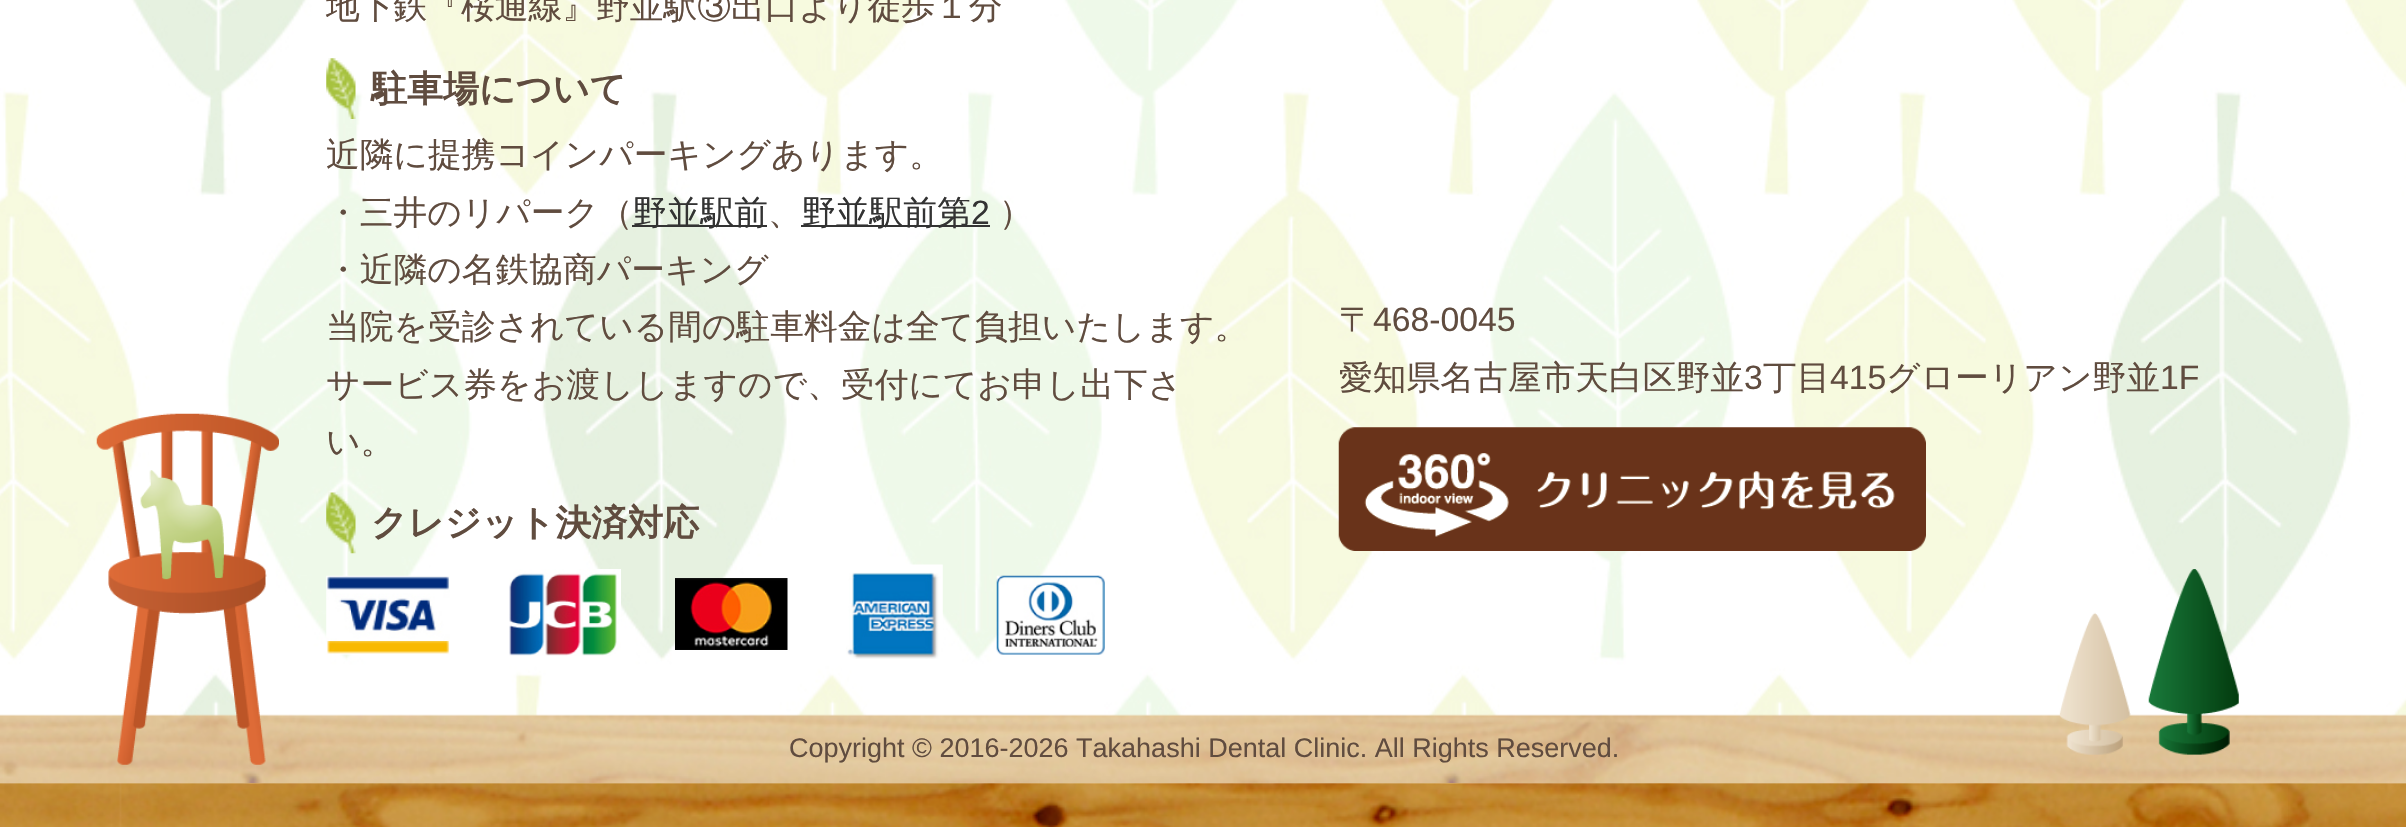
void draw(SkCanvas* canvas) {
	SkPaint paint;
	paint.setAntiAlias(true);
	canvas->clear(0xffffffff);
	canvas->drawImageRect(SkImages::DeferredFromEncodedData(SkData::MakeFromFileName("img1.png")), SkRect::MakeXYWH(0, 783, 2406, 44), SkSamplingOptions());
	canvas->drawImageRect(SkImages::DeferredFromEncodedData(SkData::MakeFromFileName("img2.png")), SkRect::MakeXYWH(0, 0, 2406, 716), SkSamplingOptions());
	canvas->drawImageRect(SkImages::DeferredFromEncodedData(SkData::MakeFromFileName("img3.png")), SkRect::MakeXYWH(0, 714, 2406, 69), SkSamplingOptions());
	SkFont f1(fontMgr->matchFamilyStyle("WenQuanYi Zen Hei", SkFontStyle(500, SkFontStyle::kNormal_Width, SkFontStyle::kUpright_Slant)), 33.75);
	f1.setSubpixel(true);
	paint.setColor(0xff604c3f);
	canvas->drawString("地下鉄『桜通線』野並駅③出口より徒歩１分", 326, 18, f1, paint);
	canvas->drawImageRect(SkImages::DeferredFromEncodedData(SkData::MakeFromFileName("img4.png")), SkRect::MakeXYWH(326, 58, 30, 61), SkSamplingOptions());
	SkFont f2(fontMgr->matchFamilyStyle("WenQuanYi Zen Hei", SkFontStyle::Bold()), 36);
	f2.setSubpixel(true);
	canvas->drawString("駐車場について", 371, 101, f2, paint);
	canvas->drawString("近隣に提携コインパーキングあります。", 326, 166, f1, paint);
	canvas->drawString("・三井のリパーク（", 326, 224, f1, paint);
	paint.setColor(0xff333333);
	canvas->drawRect(SkRect::MakeXYWH(632, 225, 135, 2), paint);
	canvas->drawString("野並駅前", 633, 224, f1, paint);
	paint.setColor(0xff604c3f);
	canvas->drawString("、", 768, 224, f1, paint);
	paint.setColor(0xff333333);
	canvas->drawRect(SkRect::MakeXYWH(801, 225, 189, 2), paint);
	canvas->drawString("野並駅前第", 802, 224, f1, paint);
	SkFont f3(fontMgr->matchFamilyStyle("Liberation Sans", SkFontStyle::Normal()), 33.75);
	f3.setSubpixel(true);
	canvas->drawString("2", 971, 224, f3, paint);
	paint.setColor(0xff604c3f);
	canvas->drawString("）", 999, 224, f1, paint);
	canvas->drawString("・近隣の名鉄協商パーキング", 326, 281, f1, paint);
	canvas->drawString("当院を受診されている間の駐車料金は全て負担いたします。", 326, 338, f1, paint);
	canvas->drawString("サービス券をお渡ししますので、受付にてお申し出下さ", 326, 396, f1, paint);
	canvas->drawString("い。", 326, 453, f1, paint);
	canvas->drawImageRect(SkImages::DeferredFromEncodedData(SkData::MakeFromFileName("img5.png")), SkRect::MakeXYWH(326, 492, 30, 62), SkSamplingOptions());
	canvas->drawString("クレジット決済対応", 371, 535, f2, paint);
	canvas->drawImageRect(SkImages::DeferredFromEncodedData(SkData::MakeFromFileName("img6.png")), SkRect::MakeXYWH(326, 575, 124, 80), SkSamplingOptions());
	canvas->drawImageRect(SkImages::DeferredFromEncodedData(SkData::MakeFromFileName("img7.png")), SkRect::MakeXYWH(509, 569, 112, 87), SkSamplingOptions());
	canvas->drawImageRect(SkImages::DeferredFromEncodedData(SkData::MakeFromFileName("img8.png")), SkRect::MakeXYWH(675, 578, 113, 72), SkSamplingOptions());
	canvas->drawImageRect(SkImages::DeferredFromEncodedData(SkData::MakeFromFileName("img9.png")), SkRect::MakeXYWH(846, 564, 97, 95), SkSamplingOptions());
	canvas->drawImageRect(SkImages::DeferredFromEncodedData(SkData::MakeFromFileName("img10.png")), SkRect::MakeXYWH(996, 575, 109, 80), SkSamplingOptions());
	canvas->drawString("〒", 1339, 331, f1, paint);
	canvas->drawString("468-0045", 1373, 331, f3, paint);
	canvas->drawString("愛知県名古屋市天白区野並", 1339, 389, f1, paint);
	canvas->drawString("3", 1744, 389, f3, paint);
	canvas->drawString("丁目", 1763, 389, f1, paint);
	canvas->drawString("415", 1830, 389, f3, paint);
	canvas->drawString("グローリアン野並", 1886, 389, f1, paint);
	canvas->drawString("1F", 2160, 389, f3, paint);
	canvas->drawImageRect(SkImages::DeferredFromEncodedData(SkData::MakeFromFileName("img11.png")), SkRect::MakeXYWH(1338, 427, 588, 124), SkSamplingOptions());
	canvas->drawImageRect(SkImages::DeferredFromEncodedData(SkData::MakeFromFileName("img12.png")), SkRect::MakeXYWH(96, 413, 183, 352), SkSamplingOptions());
	SkFont f4(fontMgr->matchFamilyStyle("Liberation Sans", SkFontStyle::Normal()), 27);
	f4.setSubpixel(true);
	canvas->drawString("Copyright © 2016-2026 Takahashi Dental Clinic. All Rights Reserved.", 789, 757, f4, paint);
	canvas->drawImageRect(SkImages::DeferredFromEncodedData(SkData::MakeFromFileName("img13.png")), SkRect::MakeXYWH(2059, 569, 180, 186), SkSamplingOptions());
}
